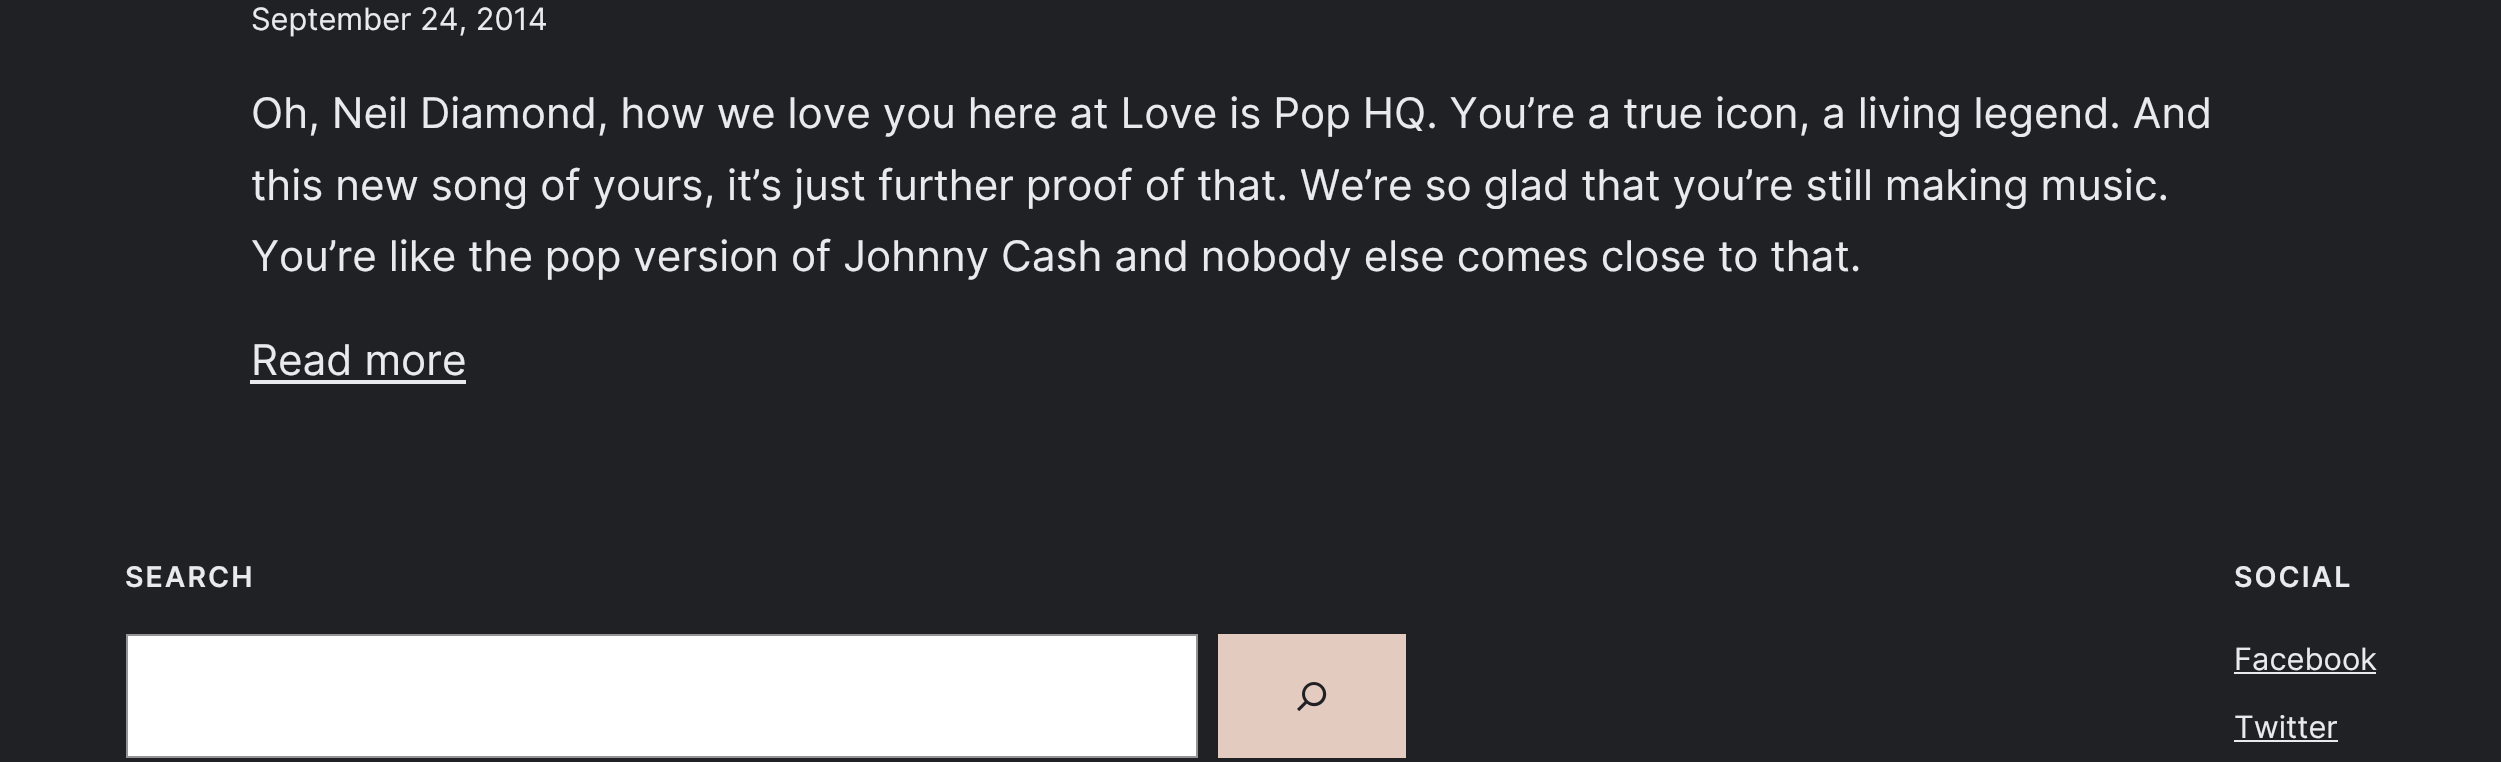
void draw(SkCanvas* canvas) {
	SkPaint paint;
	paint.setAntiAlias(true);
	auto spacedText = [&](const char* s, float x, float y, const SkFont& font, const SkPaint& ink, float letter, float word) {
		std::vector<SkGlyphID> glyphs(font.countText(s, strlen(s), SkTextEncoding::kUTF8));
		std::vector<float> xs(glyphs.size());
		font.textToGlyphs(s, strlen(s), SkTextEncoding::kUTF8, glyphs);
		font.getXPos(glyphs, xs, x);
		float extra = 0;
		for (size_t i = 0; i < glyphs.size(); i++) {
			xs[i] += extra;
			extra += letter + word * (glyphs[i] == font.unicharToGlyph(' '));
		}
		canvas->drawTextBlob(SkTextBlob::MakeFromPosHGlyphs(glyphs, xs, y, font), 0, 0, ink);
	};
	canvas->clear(0xff202124);
	SkFont f1(fontMgr->matchFamilyStyle("Inter", SkFontStyle::Normal()), 30.75);
	f1.setSubpixel(true);
	paint.setColor(0xffe8eaed);
	canvas->drawString("September 24, 2014", 251, 30, f1, paint);
	SkFont f2(fontMgr->matchFamilyStyle("Inter", SkFontStyle::Normal()), 42.2);
	f2.setSubpixel(true);
	canvas->drawString("Oh, Neil Diamond, how we love you here at Love is Pop HQ. You’re a true icon, a living legend. And", 251, 128, f2, paint);
	canvas->drawString("this new song of yours, it’s just further proof of that. We’re so glad that you’re still making music.", 251, 200, f2, paint);
	canvas->drawString("You’re like the pop version of Johnny Cash and nobody else comes close to that.", 251, 271, f2, paint);
	canvas->drawString("Read more", 251, 375, f2, paint);
	canvas->drawRect(SkRect::MakeXYWH(250, 380, 216, 4), paint);
	SkFont f3(fontMgr->matchFamilyStyle("Inter", SkFontStyle(600, SkFontStyle::kNormal_Width, SkFontStyle::kUpright_Slant)), 28.5);
	f3.setSubpixel(true);
	spacedText("SEARCH", 125, 587, f3, paint, 2, 0);
	paint.setColor(0xffffffff);
	canvas->drawRect(SkRect::MakeXYWH(127, 635, 1070, 122), paint);
	paint.setStroke(true);
	paint.setStrokeWidth(2);
	paint.setColor(0xff949494);
	canvas->drawRect(SkRect::MakeXYWH(127, 635, 1070, 122), paint);
	paint.setStroke(false);
	paint.setColor(0xffe3cbc0);
	canvas->drawRect(SkRect::MakeXYWH(1218, 634, 188, 124), paint);
	canvas->drawImageRect(SkImages::DeferredFromEncodedData(SkData::MakeFromFileName("img1.png")), SkRect::MakeXYWH(1297, 682, 30, 30), SkSamplingOptions());
	paint.setColor(0xffe8eaed);
	spacedText("SOCIAL", 2234, 587, f3, paint, 2, 0);
	canvas->drawString("Facebook", 2234, 670, f1, paint);
	canvas->drawRect(SkRect::MakeXYWH(2234, 672, 142, 2), paint);
	canvas->drawString("Twitter", 2234, 738, f1, paint);
	canvas->drawRect(SkRect::MakeXYWH(2234, 740, 104, 2), paint);
}
